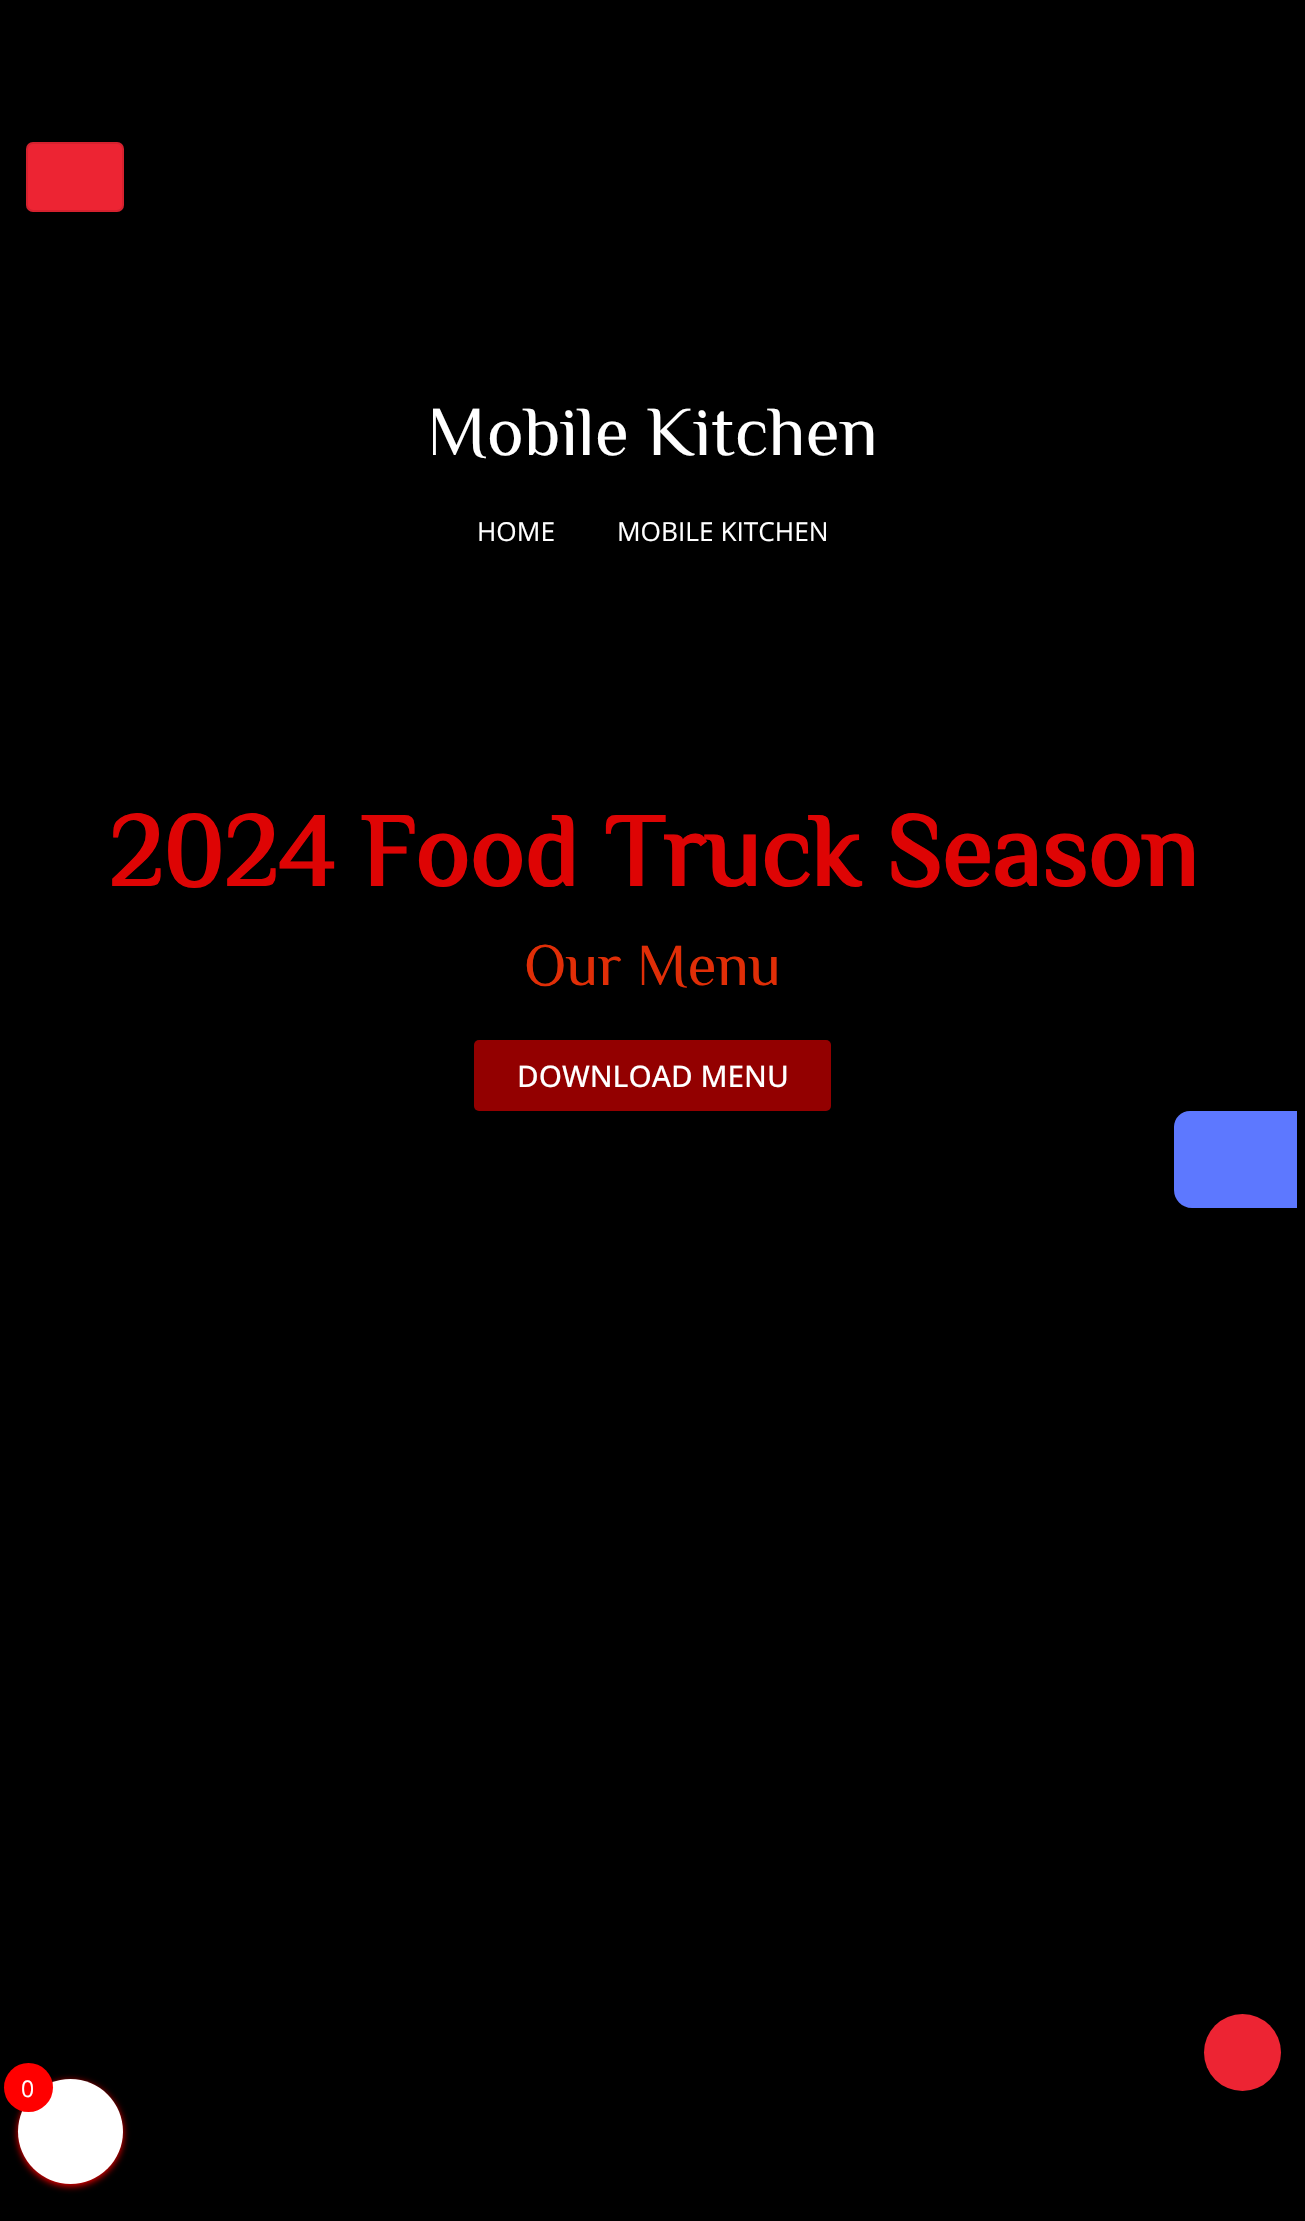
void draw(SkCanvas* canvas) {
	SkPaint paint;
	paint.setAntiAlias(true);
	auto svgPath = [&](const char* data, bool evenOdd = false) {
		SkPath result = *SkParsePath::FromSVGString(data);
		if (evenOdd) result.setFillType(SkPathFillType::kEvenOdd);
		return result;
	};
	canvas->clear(0xff000000);
	paint.setColor(0xffed2433);
	canvas->drawRoundRect(SkRect::MakeXYWH(26, 142, 98, 70), 7, 7, paint);
	paint.setStroke(true);
	paint.setStrokeWidth(2);
	paint.setColor(0x1a000000);
	canvas->drawRoundRect(SkRect::MakeXYWH(27, 143, 96, 68), 6, 6, paint);
	SkFont f1(fontMgr->matchFamilyStyle("ZCOOL XiaoWei", SkFontStyle::Normal()), 70);
	f1.setSubpixel(true);
	paint.setStroke(false);
	paint.setColor(0xffffffff);
	canvas->drawString("Mobile Kitchen", 427, 455, f1, paint);
	SkFont f2(fontMgr->matchFamilyStyle("Open Sans", SkFontStyle::Normal()), 26.25);
	f2.setSubpixel(true);
	canvas->drawString("HOME", 477, 541, f2, paint);
	canvas->drawString("MOBILE KITCHEN", 617, 541, f2, paint);
	SkFont f3(fontMgr->matchFamilyStyle("ZCOOL XiaoWei", SkFontStyle::Bold()), 103.25);
	f3.setSubpixel(true);
	paint.setColor(0xffde0404);
	canvas->drawString("2024 Food Truck Season", 108, 886, f3, paint);
	SkFont f4(fontMgr->matchFamilyStyle("ZCOOL XiaoWei", SkFontStyle::Normal()), 59.5);
	f4.setSubpixel(true);
	paint.setColor(0xffe02e07);
	canvas->drawString("Our Menu", 524, 985, f4, paint);
	paint.setColor(0xff930000);
	canvas->drawRoundRect(SkRect::MakeXYWH(474, 1040, 357, 71), 5, 5, paint);
	SkFont f5(fontMgr->matchFamilyStyle("Open Sans", SkFontStyle(500, SkFontStyle::kNormal_Width, SkFontStyle::kUpright_Slant)), 29.75);
	f5.setSubpixel(true);
	paint.setColor(0xffffffff);
	canvas->drawString("DOWNLOAD MENU", 517, 1087, f5, paint);
	paint.setColor(0xff5d78ff);
	canvas->drawPath(svgPath("M1190 1111H1297V1208H1192C1182 1208 1174 1200 1174 1190V1127C1174 1118 1181 1111 1190 1111Z"), paint);
	paint.setColor(0xfffc0000);
	paint.setMaskFilter(SkMaskFilter::MakeBlur(kNormal_SkBlurStyle, 3.5));
	canvas->drawRoundRect(SkRect::MakeXYWH(18, 2081, 105, 105), 52.5, 52.5, paint);
	paint.setMaskFilter(nullptr);
	paint.setColor(0xffffffff);
	canvas->drawCircle(70.5, 2131.5, 52.5, paint);
	paint.setColor(0xffff0000);
	canvas->drawCircle(28.5, 2087.5, 24.5, paint);
	SkFont f6(fontMgr->matchFamilyStyle("Open Sans", SkFontStyle::Normal()), 23);
	f6.setSubpixel(true);
	paint.setColor(0xffffffff);
	canvas->drawString("0", 21, 2097, f6, paint);
	paint.setColor(0xffed2433);
	canvas->drawCircle(1242.5, 2052.5, 38.5, paint);
}
